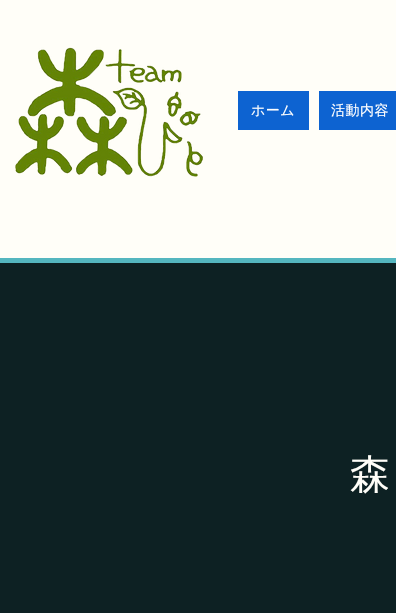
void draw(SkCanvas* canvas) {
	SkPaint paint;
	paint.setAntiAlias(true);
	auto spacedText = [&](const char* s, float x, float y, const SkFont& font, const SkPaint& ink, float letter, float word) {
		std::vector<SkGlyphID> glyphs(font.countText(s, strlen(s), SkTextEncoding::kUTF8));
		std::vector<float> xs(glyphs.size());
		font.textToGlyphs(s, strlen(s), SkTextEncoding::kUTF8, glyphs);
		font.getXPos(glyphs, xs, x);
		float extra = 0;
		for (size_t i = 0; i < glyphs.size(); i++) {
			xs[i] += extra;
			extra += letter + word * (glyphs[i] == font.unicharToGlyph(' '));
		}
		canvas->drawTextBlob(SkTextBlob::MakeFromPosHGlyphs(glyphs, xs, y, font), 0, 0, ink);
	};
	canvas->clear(0xfffffef8);
	canvas->drawImageRect(SkImages::DeferredFromEncodedData(SkData::MakeFromFileName("img1.png")), SkRect::MakeXYWH(15, 47, 188, 130), SkSamplingOptions());
	paint.setColor(0xff0d63d1);
	canvas->drawRect(SkRect::MakeXYWH(238, 91, 71, 39), paint);
	SkFont f1(fontMgr->matchFamilyStyle("WenQuanYi Zen Hei", SkFontStyle(500, SkFontStyle::kNormal_Width, SkFontStyle::kUpright_Slant)), 14);
	f1.setSubpixel(true);
	paint.setColor(0xffffffff);
	spacedText("ホーム", 251, 115, f1, paint, 0.5, 0);
	paint.setColor(0xff0d63d1);
	canvas->drawRect(SkRect::MakeXYWH(319, 91, 77, 39), paint);
	paint.setColor(0xffffffff);
	spacedText("活動内容", 331, 115, f1, paint, 0.5, 0);
	paint.setColor(0xff54b6bf);
	canvas->drawRect(SkRect::MakeXYWH(0, 258, 396, 5), paint);
	paint.setColor(0xff0d2123);
	canvas->drawRect(SkRect::MakeXYWH(0, 263, 396, 350), paint);
	SkFont f2(fontMgr->matchFamilyStyle("WenQuanYi Zen Hei", SkFontStyle(500, SkFontStyle::kNormal_Width, SkFontStyle::kUpright_Slant)), 40);
	f2.setSubpixel(true);
	paint.setColor(0xfffffef8);
	canvas->drawString("森", 350, 488, f2, paint);
}
